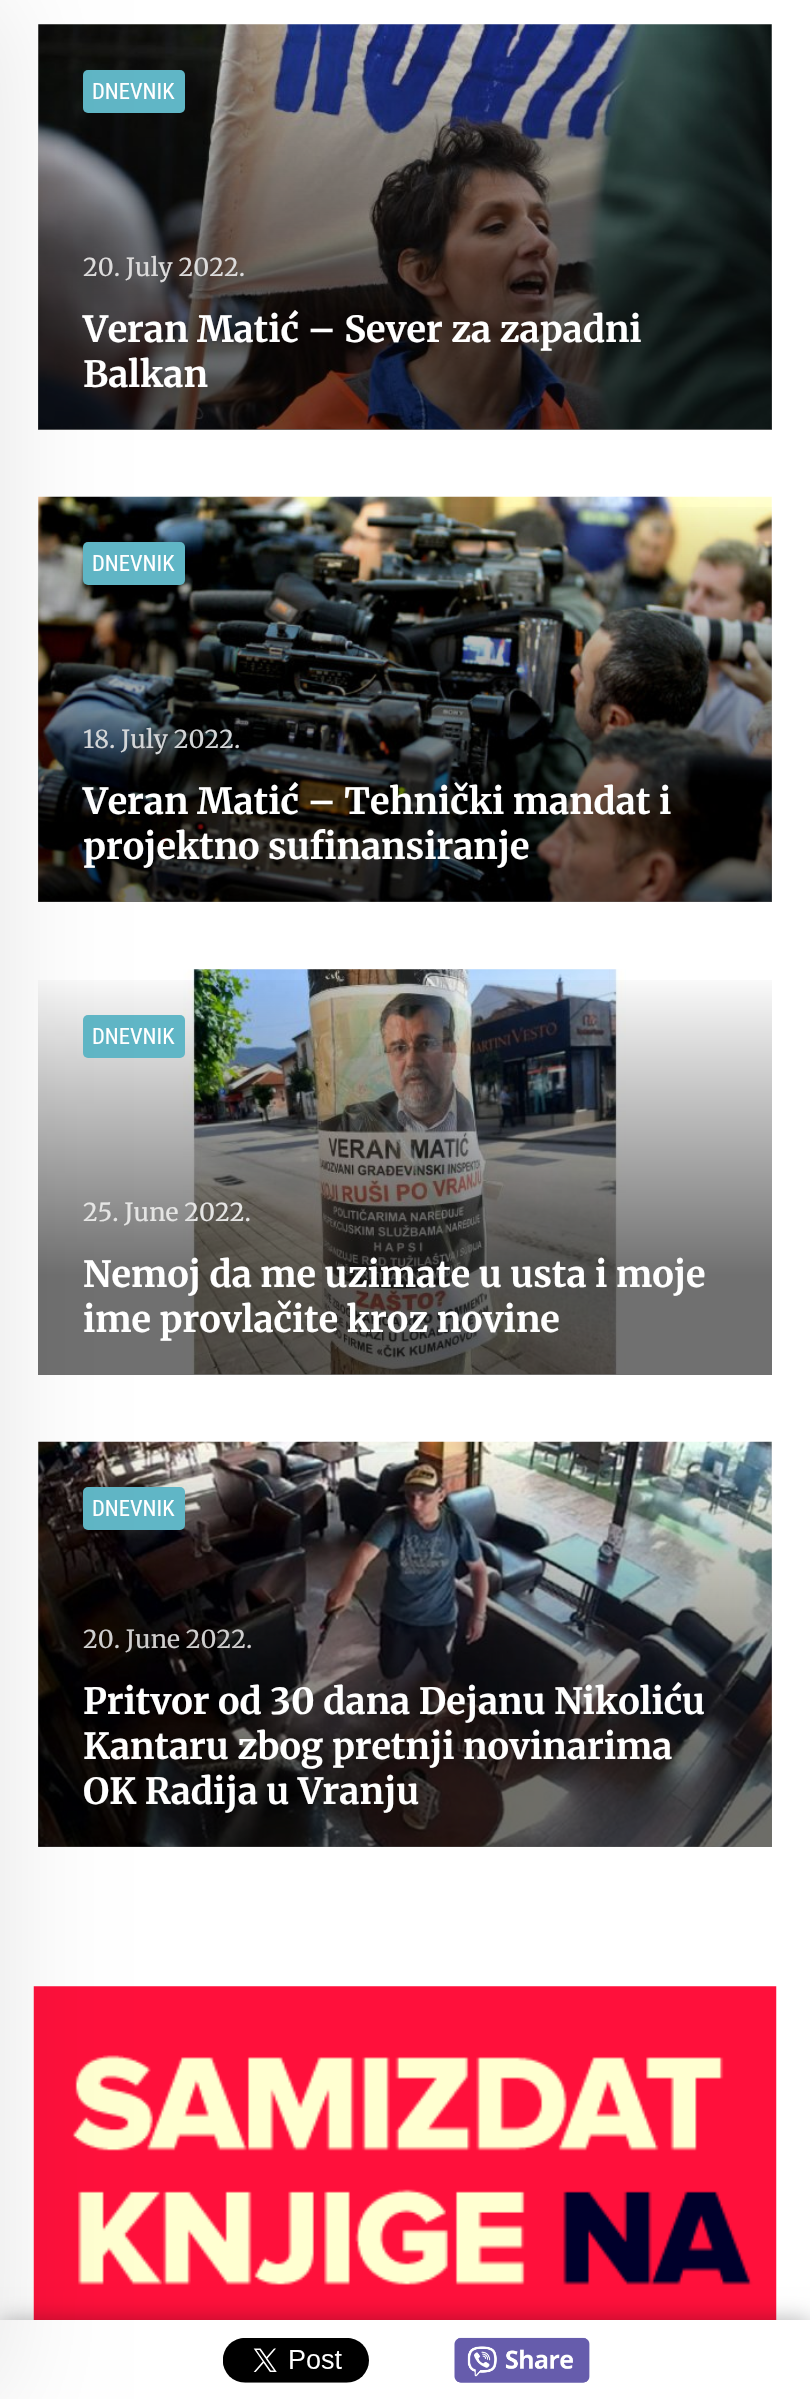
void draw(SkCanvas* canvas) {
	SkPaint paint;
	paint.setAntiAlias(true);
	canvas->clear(0xffffffff);
	canvas->drawImageRect(SkImages::DeferredFromEncodedData(SkData::MakeFromFileName("img1.png")), SkRect::MakeXYWH(38, 24, 734, 406), SkSamplingOptions());
	{
		const SkColor colors[] = {0x00000000, 0x8f000000, 0x8f000000};
		const float stops[] = {0, 0.75, 1};
		const SkPoint ends[] = {{405, 22}, {405, 432}};
		paint.setShader(SkGradientShader::MakeLinear(ends, colors, stops, 3, SkTileMode::kClamp));
		paint.setAlpha(255);
	}
	canvas->drawRect(SkRect::MakeXYWH(38, 34, 734, 396), paint);
	paint.setShader(nullptr);
	paint.setColor(0xff60b6c6);
	canvas->drawRoundRect(SkRect::MakeXYWH(83, 70, 102, 43), 5, 5, paint);
	canvas->drawImageRect(SkImages::DeferredFromEncodedData(SkData::MakeFromFileName("img2.png")), SkRect::MakeXYWH(38, 496, 734, 406), SkSamplingOptions());
	{
		const SkColor colors[] = {0x00000000, 0x8f000000, 0x8f000000};
		const float stops[] = {0, 0.75, 1};
		const SkPoint ends[] = {{405, 495}, {405, 905}};
		paint.setShader(SkGradientShader::MakeLinear(ends, colors, stops, 3, SkTileMode::kClamp));
		paint.setAlpha(255);
	}
	canvas->drawRect(SkRect::MakeXYWH(38, 507, 734, 395), paint);
	paint.setShader(nullptr);
	paint.setColor(0xff60b6c6);
	canvas->drawRoundRect(SkRect::MakeXYWH(83, 542, 102, 43), 5, 5, paint);
	canvas->drawImageRect(SkImages::DeferredFromEncodedData(SkData::MakeFromFileName("img3.png")), SkRect::MakeXYWH(183, 969, 443, 406), SkSamplingOptions());
	{
		const SkColor colors[] = {0x00000000, 0x8f000000, 0x8f000000};
		const float stops[] = {0, 0.75, 1};
		const SkPoint ends[] = {{405, 968}, {405, 1377}};
		paint.setShader(SkGradientShader::MakeLinear(ends, colors, stops, 3, SkTileMode::kClamp));
		paint.setAlpha(255);
	}
	canvas->drawRect(SkRect::MakeXYWH(38, 980, 734, 395), paint);
	paint.setShader(nullptr);
	paint.setColor(0xff60b6c6);
	canvas->drawRoundRect(SkRect::MakeXYWH(83, 1015, 102, 43), 5, 5, paint);
	canvas->drawImageRect(SkImages::DeferredFromEncodedData(SkData::MakeFromFileName("img4.png")), SkRect::MakeXYWH(38, 1441, 734, 406), SkSamplingOptions());
	{
		const SkColor colors[] = {0x00000000, 0x8f000000, 0x8f000000};
		const float stops[] = {0, 0.75, 1};
		const SkPoint ends[] = {{405, 1440}, {405, 1850}};
		paint.setShader(SkGradientShader::MakeLinear(ends, colors, stops, 3, SkTileMode::kClamp));
		paint.setAlpha(255);
	}
	canvas->drawRect(SkRect::MakeXYWH(38, 1452, 734, 395), paint);
	paint.setShader(nullptr);
	paint.setColor(0xff60b6c6);
	canvas->drawRoundRect(SkRect::MakeXYWH(83, 1487, 102, 43), 5, 5, paint);
	canvas->drawImageRect(SkImages::DeferredFromEncodedData(SkData::MakeFromFileName("img5.png")), SkRect::MakeXYWH(33, 1986, 744, 334), SkSamplingOptions());
	paint.setColor(0x4d000000);
	paint.setMaskFilter(SkMaskFilter::MakeBlur(kNormal_SkBlurStyle, 11));
	canvas->drawRect(SkRect::MakeXYWH(0, 2320, 810, 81), paint);
	paint.setMaskFilter(nullptr);
	paint.setColor(0xffffffff);
	canvas->drawRect(SkRect::MakeXYWH(0, 2320, 810, 79), paint);
	paint.setColor(0x1a000000);
	paint.setMaskFilter(SkMaskFilter::MakeBlur(kNormal_SkBlurStyle, 56));
	canvas->drawRect(SkRect::MakeXYWH(-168, 0, 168, 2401), paint);
	paint.setMaskFilter(nullptr);
	SkFont f1(fontMgr->matchFamilyStyle("Roboto Condensed", SkFontStyle::Normal()), 22.5);
	f1.setSubpixel(true);
	paint.setColor(0xffffffff);
	canvas->drawString("DNEVNIK", 92, 99, f1, paint);
	SkFont f2(fontMgr->matchFamilyStyle("Merriweather", SkFontStyle::Normal()), 24.75);
	f2.setSubpixel(true);
	paint.setColor(0xffdcdbdb);
	canvas->drawString("20. July 2022.", 83, 276, f2, paint);
	SkFont f3(fontMgr->matchFamilyStyle("Merriweather", SkFontStyle::Bold()), 36);
	f3.setSubpixel(true);
	paint.setColor(0xffffffff);
	canvas->drawString("Veran Matić – Sever za zapadni", 83, 342, f3, paint);
	canvas->drawString("Balkan", 83, 387, f3, paint);
	canvas->drawString("DNEVNIK", 92, 571, f1, paint);
	paint.setColor(0xffd3d5d7);
	canvas->drawString("18. July 2022.", 83, 748, f2, paint);
	paint.setColor(0xffffffff);
	canvas->drawString("Veran Matić – Tehnički mandat i", 83, 814, f3, paint);
	canvas->drawString("projektno sufinansiranje", 83, 859, f3, paint);
	canvas->drawString("DNEVNIK", 92, 1044, f1, paint);
	paint.setColor(0xffe5e5e4);
	canvas->drawString("25. June 2022.", 83, 1221, f2, paint);
	paint.setColor(0xffffffff);
	canvas->drawString("Nemoj da me uzimate u usta i moje", 83, 1287, f3, paint);
	canvas->drawString("ime provlačite kroz novine", 83, 1332, f3, paint);
	canvas->drawString("DNEVNIK", 92, 1516, f1, paint);
	paint.setColor(0xffcfcece);
	canvas->drawString("20. June 2022.", 83, 1648, f2, paint);
	paint.setColor(0xffffffff);
	canvas->drawString("Pritvor od 30 dana Dejanu Nikoliću", 83, 1714, f3, paint);
	canvas->drawString("Kantaru zbog pretnji novinarima", 83, 1759, f3, paint);
	canvas->drawString("OK Radija u Vranju", 83, 1804, f3, paint);
	canvas->drawImageRect(SkImages::DeferredFromEncodedData(SkData::MakeFromFileName("img6.png")), SkRect::MakeXYWH(223, 2338, 146, 45), SkSamplingOptions());
	canvas->drawImageRect(SkImages::DeferredFromEncodedData(SkData::MakeFromFileName("img7.png")), SkRect::MakeXYWH(454, 2337, 136, 46), SkSamplingOptions());
}
